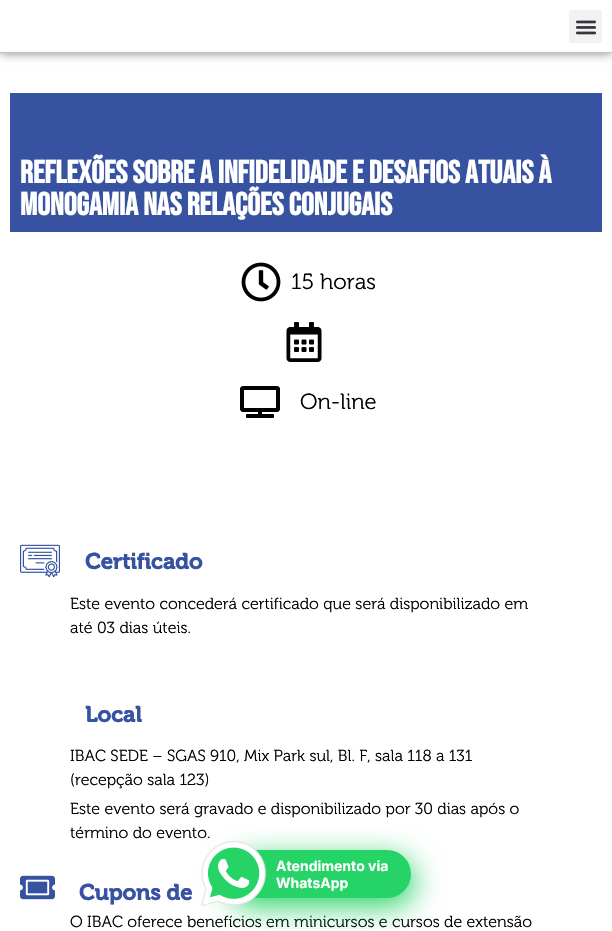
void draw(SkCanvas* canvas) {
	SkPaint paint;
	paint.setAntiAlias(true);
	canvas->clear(0xffffffff);
	paint.setColor(0x80000000);
	paint.setMaskFilter(SkMaskFilter::MakeBlur(kNormal_SkBlurStyle, 5));
	canvas->drawRect(SkRect::MakeXYWH(0, 0, 612, 53), paint);
	paint.setMaskFilter(nullptr);
	{
		const SkColor colors[] = {0xffffffff, 0xffa9a9a9};
		const float stops[] = {0.97, 1};
		const SkPoint ends[] = {{306, 0}, {306, 53}};
		paint.setShader(SkGradientShader::MakeLinear(ends, colors, stops, 2, SkTileMode::kClamp));
		paint.setAlpha(255);
	}
	canvas->drawRect(SkRect::MakeXYWH(0, 0, 612, 53), paint);
	paint.setShader(nullptr);
	paint.setColor(0xfff2f2f2);
	canvas->drawRoundRect(SkRect::MakeXYWH(569, 10, 33, 33), 3, 3, paint);
	canvas->drawImageRect(SkImages::DeferredFromEncodedData(SkData::MakeFromFileName("img1.png")), SkRect::MakeXYWH(575, 20, 22, 15), SkSamplingOptions());
	paint.setColor(0xff3652a0);
	canvas->drawRect(SkRect::MakeXYWH(10, 93, 592, 139), paint);
	SkFont f1(fontMgr->matchFamilyStyle("Bebas Neue", SkFontStyle::Bold()), 32);
	f1.setSubpixel(true);
	paint.setColor(0xffffffff);
	canvas->drawString("Reflexões sobre a infidelidade e desafios atuais à", 20, 183, f1, paint);
	canvas->drawString("monogamia nas relações conjugais", 20, 215, f1, paint);
	canvas->drawImageRect(SkImages::DeferredFromEncodedData(SkData::MakeFromFileName("img2.png")), SkRect::MakeXYWH(241, 262, 40, 40), SkSamplingOptions());
	SkFont f2(fontMgr->matchFamilyStyle("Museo", SkFontStyle::Normal()), 22);
	f2.setSubpixel(true);
	paint.setColor(0xff000000);
	canvas->drawString("15 horas", 291, 289, f2, paint);
	canvas->drawImageRect(SkImages::DeferredFromEncodedData(SkData::MakeFromFileName("img3.png")), SkRect::MakeXYWH(286, 322, 36, 40), SkSamplingOptions());
	canvas->drawImageRect(SkImages::DeferredFromEncodedData(SkData::MakeFromFileName("img4.png")), SkRect::MakeXYWH(240, 386, 40, 32), SkSamplingOptions());
	canvas->drawString("On-line", 300, 409, f2, paint);
	canvas->drawImageRect(SkImages::DeferredFromEncodedData(SkData::MakeFromFileName("img5.png")), SkRect::MakeXYWH(20, 544, 40, 34), SkSamplingOptions());
	SkFont f3(fontMgr->matchFamilyStyle("Museo", SkFontStyle::Bold()), 22);
	f3.setSubpixel(true);
	paint.setColor(0xff3652a0);
	canvas->drawString("Certificado", 85, 569, f3, paint);
	SkFont f4(fontMgr->matchFamilyStyle("Museo", SkFontStyle::Normal()), 16);
	f4.setSubpixel(true);
	paint.setColor(0xff000000);
	canvas->drawString("Este evento concederá certificado que será disponibilizado em", 70, 609, f4, paint);
	canvas->drawString("até 03 dias úteis.", 70, 633, f4, paint);
	paint.setColor(0xff3652a0);
	canvas->drawString("Local", 85, 722, f3, paint);
	paint.setColor(0xff000000);
	canvas->drawString("IBAC SEDE – SGAS 910, Mix Park sul, Bl. F, sala 118 a 131", 70, 761, f4, paint);
	canvas->drawString("(recepção sala 123)", 70, 785, f4, paint);
	canvas->drawString("Este evento será gravado e disponibilizado por 30 dias após o", 70, 814, f4, paint);
	canvas->drawString("término do evento.", 70, 838, f4, paint);
	canvas->drawImageRect(SkImages::DeferredFromEncodedData(SkData::MakeFromFileName("img6.png")), SkRect::MakeXYWH(20, 875, 35, 25), SkSamplingOptions());
	paint.setColor(0xff3652a0);
	canvas->drawString("Cupons de", 79, 900, f3, paint);
	paint.setColor(0xff000000);
	canvas->drawString("O IBAC oferece benefícios em minicursos e cursos de extensão", 70, 927, f4, paint);
	paint.setColor(0xff25d366);
	paint.setMaskFilter(SkMaskFilter::MakeBlur(kNormal_SkBlurStyle, 15));
	canvas->drawRoundRect(SkRect::MakeXYWH(229, 858, 185, 48), 24, 24, paint);
	paint.setMaskFilter(nullptr);
	canvas->drawRoundRect(SkRect::MakeXYWH(226, 850, 185, 48), 24, 24, paint);
	canvas->drawImageRect(SkImages::DeferredFromEncodedData(SkData::MakeFromFileName("img7.png")), SkRect::MakeXYWH(201, 841, 65, 65), SkSamplingOptions());
	SkFont f5(fontMgr->matchFamilyStyle("Inter", SkFontStyle::Bold()), 14);
	f5.setSubpixel(true);
	paint.setColor(0xffffffff);
	canvas->drawString("Atendimento via", 276, 871, f5, paint);
	canvas->drawString("WhatsApp", 276, 888, f5, paint);
}
